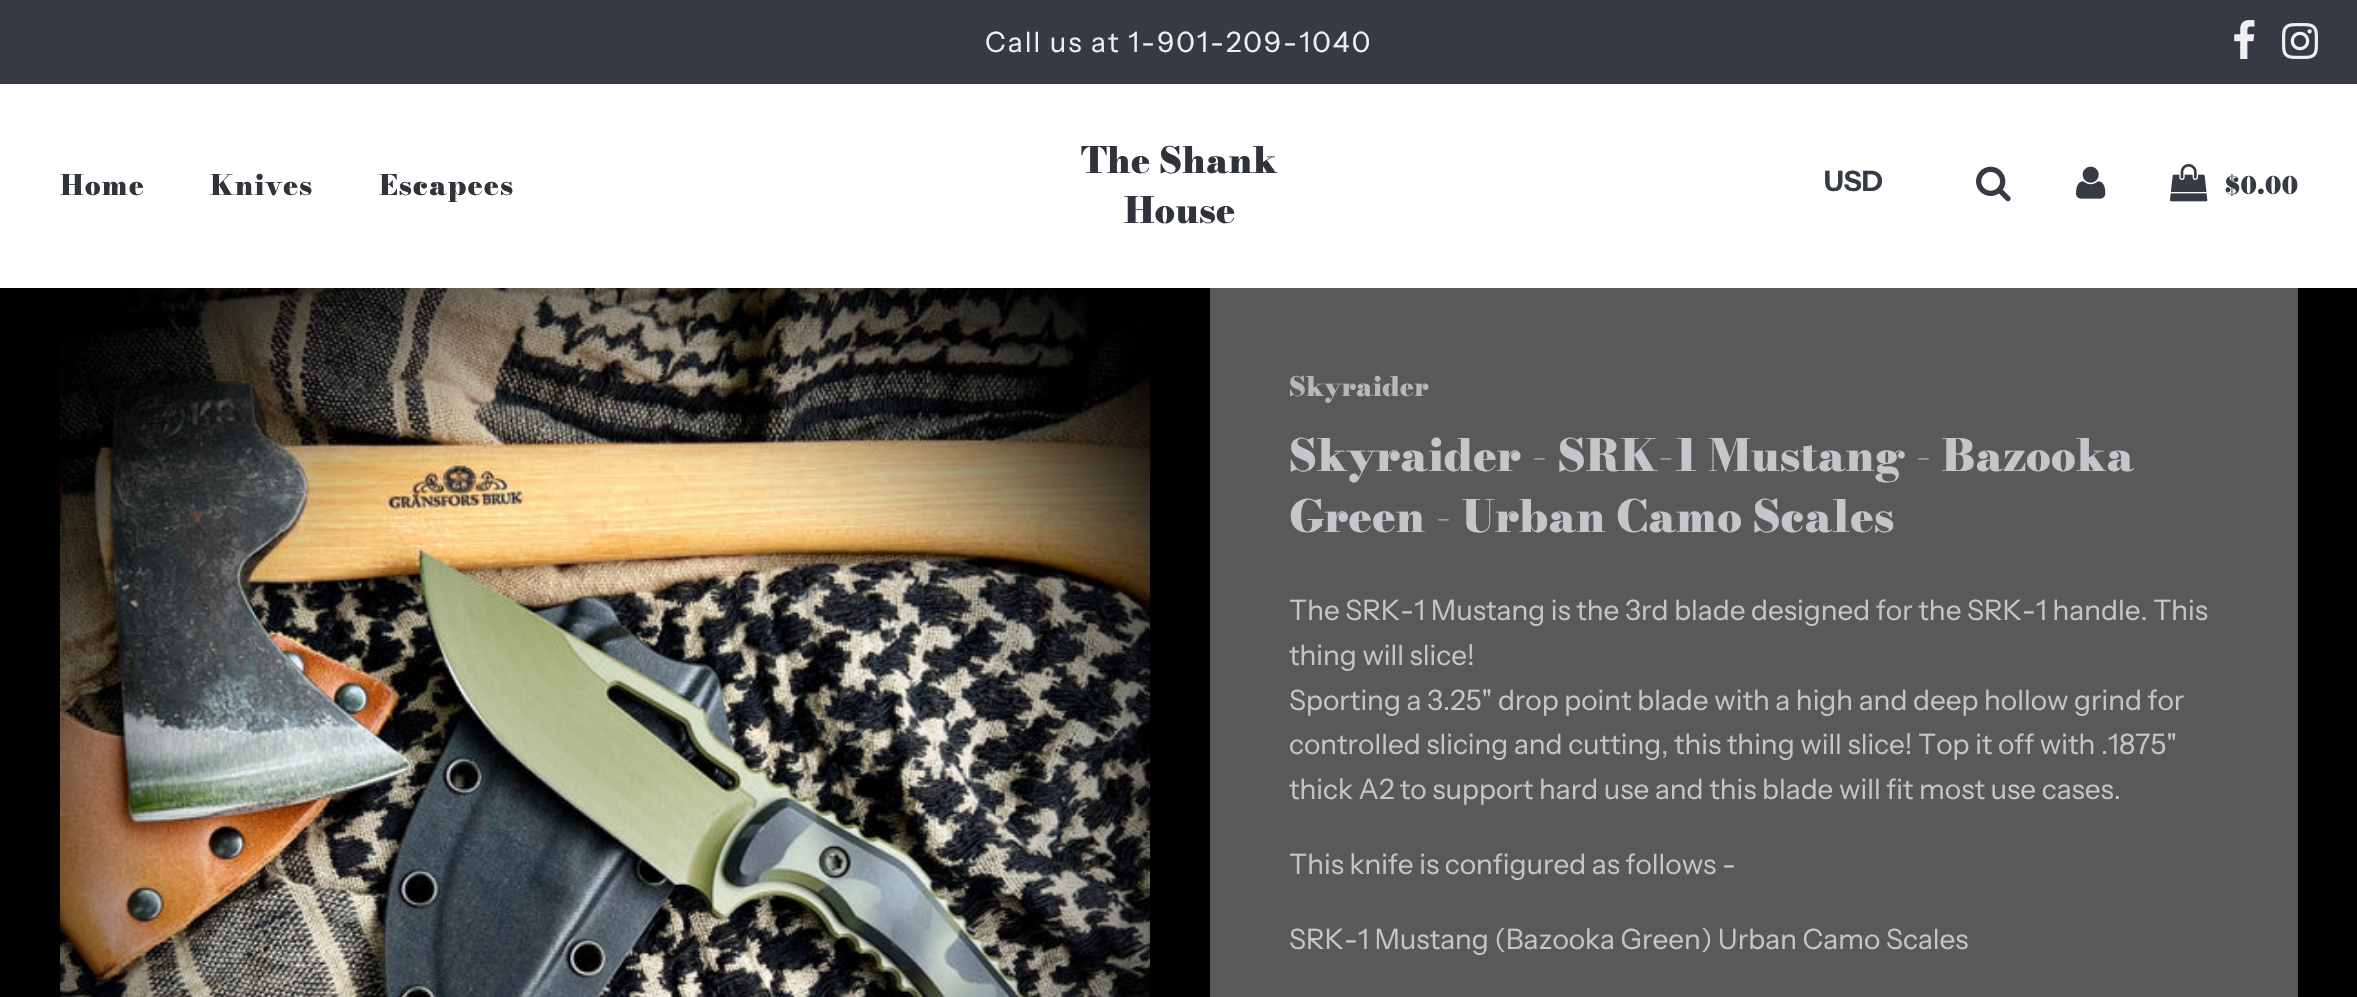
void draw(SkCanvas* canvas) {
	SkPaint paint;
	paint.setAntiAlias(true);
	auto spacedText = [&](const char* s, float x, float y, const SkFont& font, const SkPaint& ink, float letter, float word) {
		std::vector<SkGlyphID> glyphs(font.countText(s, strlen(s), SkTextEncoding::kUTF8));
		std::vector<float> xs(glyphs.size());
		font.textToGlyphs(s, strlen(s), SkTextEncoding::kUTF8, glyphs);
		font.getXPos(glyphs, xs, x);
		float extra = 0;
		for (size_t i = 0; i < glyphs.size(); i++) {
			xs[i] += extra;
			extra += letter + word * (glyphs[i] == font.unicharToGlyph(' '));
		}
		canvas->drawTextBlob(SkTextBlob::MakeFromPosHGlyphs(glyphs, xs, y, font), 0, 0, ink);
	};
	canvas->clear(0xff000000);
	paint.setColor(0xff363a44);
	canvas->drawRect(SkRect::MakeXYWH(0, 0, 2357, 84), paint);
	SkFont f1(fontMgr->matchFamilyStyle("Instrument Sans", SkFontStyle::Normal()), 28);
	f1.setSubpixel(true);
	paint.setColor(0xfff0f0f0);
	spacedText("Call us at 1-901-209-1040", 985, 52, f1, paint, 2, 0);
	canvas->drawImageRect(SkImages::DeferredFromEncodedData(SkData::MakeFromFileName("img1.png")), SkRect::MakeXYWH(2234, 20, 21, 39), SkSamplingOptions());
	canvas->drawImageRect(SkImages::DeferredFromEncodedData(SkData::MakeFromFileName("img2.png")), SkRect::MakeXYWH(2282, 23, 36, 36), SkSamplingOptions());
	paint.setColor(0xffffffff);
	canvas->drawRect(SkRect::MakeXYWH(0, 84, 2357, 204), paint);
	SkFont f2(fontMgr->matchFamilyStyle("Bodoni Moda", SkFontStyle(900, SkFontStyle::kNormal_Width, SkFontStyle::kUpright_Slant)), 28);
	f2.setSubpixel(true);
	paint.setColor(0xff303339);
	spacedText("Home", 60, 195, f2, paint, 1, 0);
	spacedText("Knives", 210, 195, f2, paint, 1, 0);
	spacedText("Escapees", 379, 195, f2, paint, 1, 0);
	SkFont f3(fontMgr->matchFamilyStyle("Bodoni Moda", SkFontStyle(900, SkFontStyle::kNormal_Width, SkFontStyle::kUpright_Slant)), 36);
	f3.setSubpixel(true);
	canvas->drawString("The Shank", 1081, 173, f3, paint);
	canvas->drawString("House", 1124, 223, f3, paint);
	SkFont f4(fontMgr->matchFamilyStyle("Instrument Sans", SkFontStyle::Bold()), 28);
	f4.setSubpixel(true);
	paint.setColor(0xff363a44);
	canvas->drawString("USD", 1824, 191, f4, paint);
	canvas->drawImageRect(SkImages::DeferredFromEncodedData(SkData::MakeFromFileName("img3.png")), SkRect::MakeXYWH(1976, 166, 35, 36), SkSamplingOptions());
	canvas->drawImageRect(SkImages::DeferredFromEncodedData(SkData::MakeFromFileName("img4.png")), SkRect::MakeXYWH(2076, 166, 30, 33), SkSamplingOptions());
	canvas->drawImageRect(SkImages::DeferredFromEncodedData(SkData::MakeFromFileName("img5.png")), SkRect::MakeXYWH(2170, 164, 38, 38), SkSamplingOptions());
	SkFont f5(fontMgr->matchFamilyStyle("Bodoni Moda", SkFontStyle(900, SkFontStyle::kNormal_Width, SkFontStyle::kUpright_Slant)), 24);
	f5.setSubpixel(true);
	canvas->drawString("$0.00", 2225, 194, f5, paint);
	canvas->drawImageRect(SkImages::DeferredFromEncodedData(SkData::MakeFromFileName("img6.png")), SkRect::MakeXYWH(60, 288, 1090, 709), SkSamplingOptions());
	paint.setColor(0xff595959);
	canvas->drawRect(SkRect::MakeXYWH(1210, 288, 1088, 709), paint);
	SkFont f6(fontMgr->matchFamilyStyle("Bodoni Moda", SkFontStyle(900, SkFontStyle::kNormal_Width, SkFontStyle::kUpright_Slant)), 26.5);
	f6.setSubpixel(true);
	paint.setColor(0xffb8b8b8);
	canvas->drawString("Skyraider", 1289, 396, f6, paint);
	SkFont f7(fontMgr->matchFamilyStyle("Bodoni Moda", SkFontStyle(900, SkFontStyle::kNormal_Width, SkFontStyle::kUpright_Slant)), 44);
	f7.setSubpixel(true);
	paint.setColor(0xffc5c5ca);
	spacedText("Skyraider - SRK-1 Mustang - Bazooka", 1289, 471, f7, paint, 0, -0.5);
	spacedText("Green - Urban Camo Scales", 1289, 532, f7, paint, 0, -0.5);
	canvas->drawString("The SRK-1 Mustang is the 3rd blade designed for the SRK-1 handle. This", 1289, 620, f1, paint);
	canvas->drawString("thing will slice!", 1289, 665, f1, paint);
	canvas->drawString("Sporting a 3.25\" drop point blade with a high and deep hollow grind for", 1289, 710, f1, paint);
	canvas->drawString("controlled slicing and cutting, this thing will slice! Top it off with .1875\"", 1289, 754, f1, paint);
	canvas->drawString("thick A2 to support hard use and this blade will fit most use cases.", 1289, 799, f1, paint);
	canvas->drawString("This knife is configured as follows -", 1289, 874, f1, paint);
	canvas->drawString("SRK-1 Mustang (Bazooka Green) Urban Camo Scales", 1289, 949, f1, paint);
}
